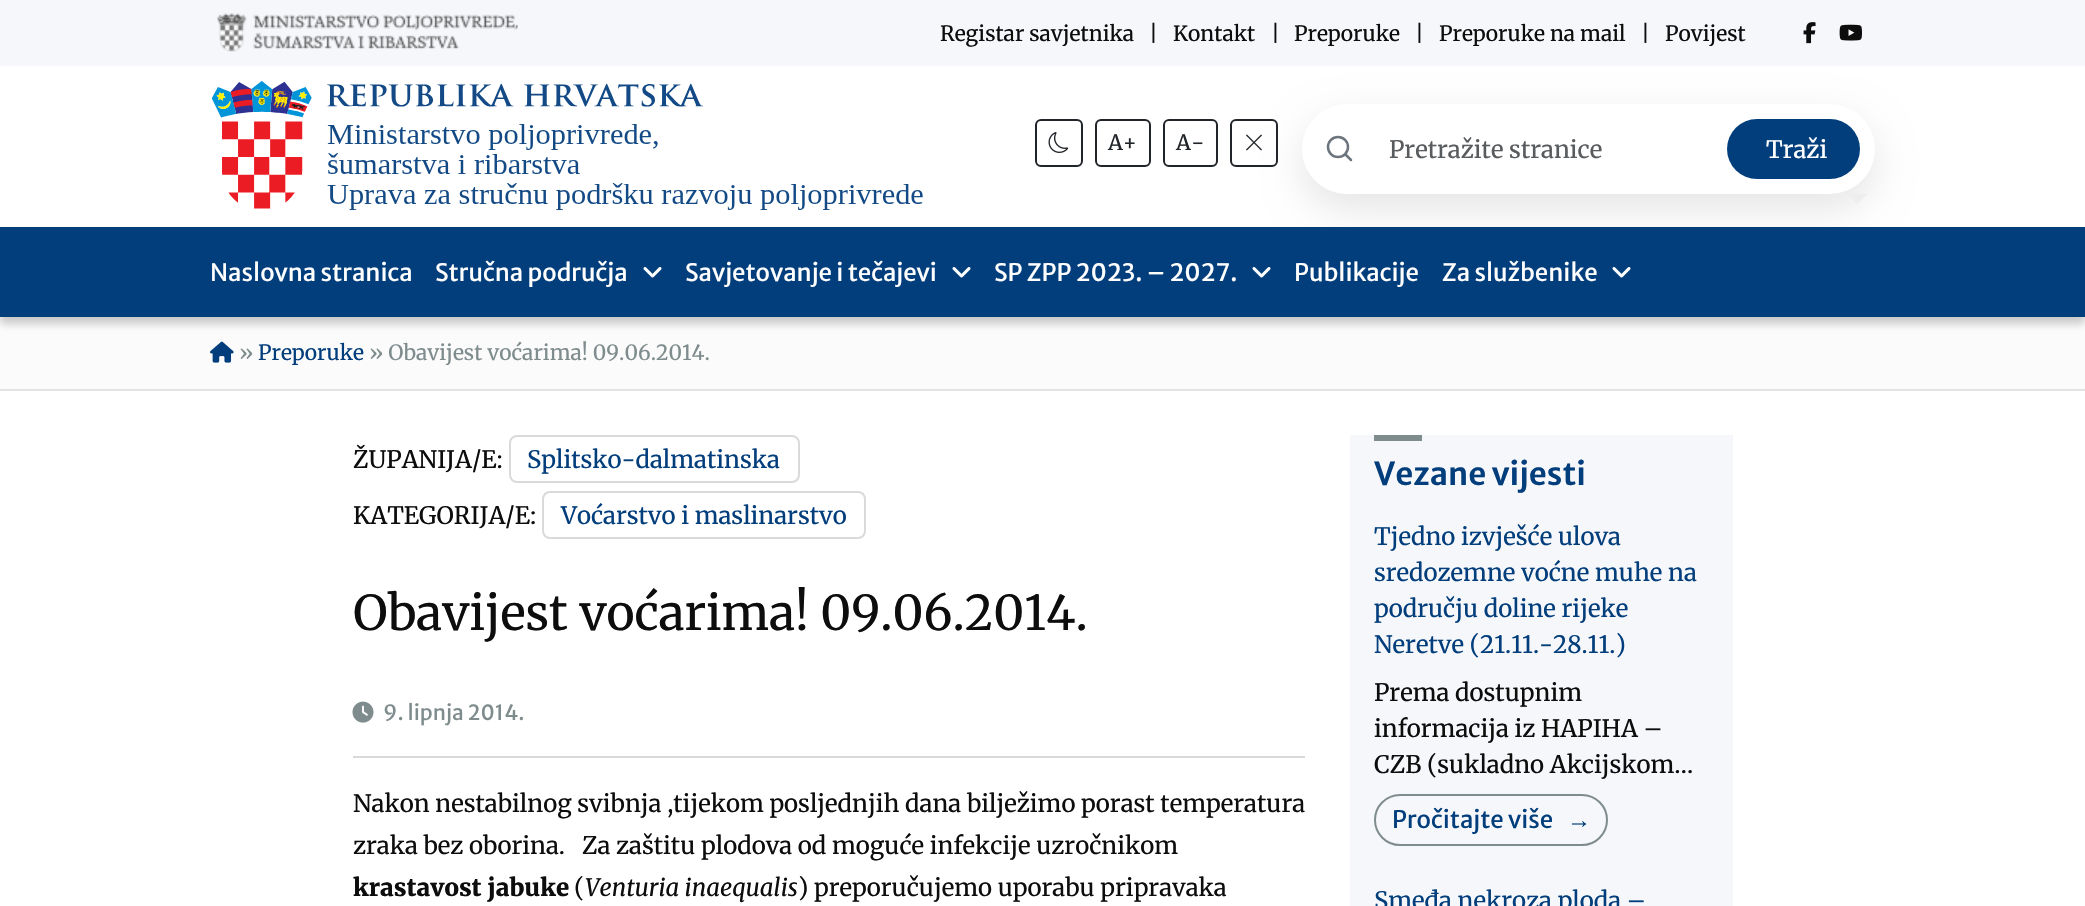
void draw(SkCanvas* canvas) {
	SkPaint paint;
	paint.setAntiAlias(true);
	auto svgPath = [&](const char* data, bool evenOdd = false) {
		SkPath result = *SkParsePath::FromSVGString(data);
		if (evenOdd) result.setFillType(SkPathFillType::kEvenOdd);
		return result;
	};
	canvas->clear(0xffffffff);
	paint.setColor(0xffe6e6e6);
	canvas->drawRect(SkRect::MakeXYWH(0, 390, 2085, 1), paint);
	paint.setColor(0xfff5f7fa);
	canvas->drawRect(SkRect::MakeXYWH(0, 0, 2085, 66), paint);
	canvas->drawImageRect(SkImages::DeferredFromEncodedData(SkData::MakeFromFileName("img1.png")), SkRect::MakeXYWH(217, 13, 301, 39), SkSamplingOptions());
	SkFont f1(fontMgr->matchFamilyStyle("Merriweather", SkFontStyle::Normal()), 21);
	f1.setSubpixel(true);
	paint.setColor(0xff0d0d0d);
	canvas->drawString("Registar savjetnika", 940, 41, f1, paint);
	canvas->drawString("|", 1149, 41, f1, paint);
	canvas->drawString("Kontakt", 1173, 41, f1, paint);
	canvas->drawString("|", 1271, 41, f1, paint);
	canvas->drawString("Preporuke", 1294, 41, f1, paint);
	canvas->drawString("|", 1415, 41, f1, paint);
	canvas->drawString("Preporuke na mail", 1439, 41, f1, paint);
	canvas->drawString("|", 1641, 41, f1, paint);
	canvas->drawString("Povijest", 1665, 41, f1, paint);
	canvas->drawImageRect(SkImages::DeferredFromEncodedData(SkData::MakeFromFileName("img2.png")), SkRect::MakeXYWH(1803, 22, 13, 22), SkSamplingOptions());
	canvas->drawImageRect(SkImages::DeferredFromEncodedData(SkData::MakeFromFileName("img3.png")), SkRect::MakeXYWH(1839, 24, 23, 17), SkSamplingOptions());
	canvas->drawImageRect(SkImages::DeferredFromEncodedData(SkData::MakeFromFileName("img4.png")), SkRect::MakeXYWH(211, 81, 712, 129), SkSamplingOptions());
	paint.setStroke(true);
	paint.setStrokeWidth(2);
	paint.setColor(0xff212529);
	canvas->drawRoundRect(SkRect::MakeXYWH(1036, 120, 46, 46), 5, 5, paint);
	canvas->drawImageRect(SkImages::DeferredFromEncodedData(SkData::MakeFromFileName("img5.png")), SkRect::MakeXYWH(1048, 132, 21, 21), SkSamplingOptions());
	canvas->drawRoundRect(SkRect::MakeXYWH(1096, 120, 54, 46), 5, 5, paint);
	paint.setStroke(false);
	canvas->drawString("A+", 1108, 150, f1, paint);
	paint.setStroke(true);
	canvas->drawRoundRect(SkRect::MakeXYWH(1164, 120, 53, 46), 5, 5, paint);
	paint.setStroke(false);
	canvas->drawString("A−", 1176, 150, f1, paint);
	paint.setStroke(true);
	canvas->drawRoundRect(SkRect::MakeXYWH(1231, 120, 46, 46), 5, 5, paint);
	canvas->drawImageRect(SkImages::DeferredFromEncodedData(SkData::MakeFromFileName("img6.png")), SkRect::MakeXYWH(1246, 134, 16, 17), SkSamplingOptions());
	paint.setStroke(false);
	paint.setColor(0x1a000000);
	paint.setMaskFilter(SkMaskFilter::MakeBlur(kNormal_SkBlurStyle, 19));
	canvas->drawRoundRect(SkRect::MakeXYWH(1302, 119, 573, 90), 45, 45, paint);
	paint.setMaskFilter(nullptr);
	paint.setColor(0xffffffff);
	canvas->drawRoundRect(SkRect::MakeXYWH(1302, 104, 573, 90), 45, 45, paint);
	paint.setStroke(true);
	paint.setStrokeWidth(2.5);
	paint.setColor(0xff6c757d);
	canvas->drawCircle(1338, 147, 10, paint);
	paint.setStrokeCap(SkPaint::kRound_Cap);
	paint.setStrokeJoin(SkPaint::kRound_Join);
	canvas->drawPath(svgPath("M1351 160L1345.5 154.5"), paint);
	SkFont f2(fontMgr->matchFamilyStyle("Merriweather", SkFontStyle::Normal()), 24);
	f2.setSubpixel(true);
	paint.setStroke(false);
	paint.setColor(0xff595c5f);
	canvas->drawString("Pretražite stranice", 1389, 158, f2, paint);
	paint.setColor(0xff033e7c);
	canvas->drawRoundRect(SkRect::MakeXYWH(1727, 119, 133, 60), 30, 30, paint);
	paint.setColor(0xffffffff);
	canvas->drawString("Traži", 1766, 158, f2, paint);
	paint.setColor(0xffeeeeee);
	canvas->drawPath(svgPath("M1846.5 193.5H1867.5L1857 204Z"), paint);
	paint.setColor(0xfffbfbfb);
	canvas->drawRect(SkRect::MakeXYWH(0, 317, 2085, 72), paint);
	paint.setColor(0x33050505);
	paint.setMaskFilter(SkMaskFilter::MakeBlur(kNormal_SkBlurStyle, 4));
	canvas->drawRect(SkRect::MakeXYWH(0, 234, 2085, 90), paint);
	paint.setMaskFilter(nullptr);
	paint.setColor(0xff033e7c);
	canvas->drawRect(SkRect::MakeXYWH(0, 227, 2085, 90), paint);
	SkFont f3(fontMgr->matchFamilyStyle("Merriweather Sans", SkFontStyle::Normal()), 24);
	f3.setSubpixel(true);
	paint.setColor(0xffffffff);
	canvas->drawString("Naslovna stranica", 210, 281, f3, paint);
	canvas->drawString("Stručna područja", 435, 281, f3, paint);
	canvas->drawImageRect(SkImages::DeferredFromEncodedData(SkData::MakeFromFileName("img7.png")), SkRect::MakeXYWH(643, 267, 19, 11), SkSamplingOptions());
	canvas->drawString("Savjetovanje i tečajevi", 685, 281, f3, paint);
	canvas->drawImageRect(SkImages::DeferredFromEncodedData(SkData::MakeFromFileName("img7.png")), SkRect::MakeXYWH(952, 267, 19, 11), SkSamplingOptions());
	canvas->drawString("SP ZPP 2023. – 2027.", 994, 281, f3, paint);
	canvas->drawImageRect(SkImages::DeferredFromEncodedData(SkData::MakeFromFileName("img7.png")), SkRect::MakeXYWH(1252, 267, 19, 11), SkSamplingOptions());
	canvas->drawString("Publikacije", 1294, 281, f3, paint);
	canvas->drawString("Za službenike", 1442, 281, f3, paint);
	canvas->drawImageRect(SkImages::DeferredFromEncodedData(SkData::MakeFromFileName("img7.png")), SkRect::MakeXYWH(1612, 267, 19, 11), SkSamplingOptions());
	paint.setColor(0xffe2e2e2);
	canvas->drawRect(SkRect::MakeXYWH(0, 389, 2085, 1), paint);
	canvas->drawImageRect(SkImages::DeferredFromEncodedData(SkData::MakeFromFileName("img8.png")), SkRect::MakeXYWH(210, 341, 24, 22), SkSamplingOptions());
	paint.setColor(0xff7f8c8d);
	canvas->drawString("»", 239, 360, f1, paint);
	paint.setColor(0xff033e7c);
	canvas->drawString("Preporuke", 258, 360, f1, paint);
	paint.setColor(0xff7f8c8d);
	canvas->drawString("» Obavijest voćarima! 09.06.2014.", 369, 360, f1, paint);
	paint.setColor(0xff0d0d0d);
	canvas->drawString("ŽUPANIJA/E:", 353, 468, f2, paint);
	paint.setStroke(true);
	paint.setStrokeWidth(2);
	paint.setStrokeCap(SkPaint::kButt_Cap);
	paint.setStrokeJoin(SkPaint::kMiter_Join);
	paint.setColor(0xffdadada);
	canvas->drawRoundRect(SkRect::MakeXYWH(510, 436, 289, 46), 7, 7, paint);
	paint.setStroke(false);
	paint.setColor(0xff033e7c);
	canvas->drawString("Splitsko-dalmatinska", 527, 468, f2, paint);
	paint.setColor(0xff0d0d0d);
	canvas->drawString("KATEGORIJA/E:", 353, 524, f2, paint);
	paint.setStroke(true);
	paint.setColor(0xffdadada);
	canvas->drawRoundRect(SkRect::MakeXYWH(543, 492, 322, 46), 7, 7, paint);
	paint.setStroke(false);
	paint.setColor(0xff033e7c);
	canvas->drawString("Voćarstvo i maslinarstvo", 561, 524, f2, paint);
	SkFont f4(fontMgr->matchFamilyStyle("Merriweather", SkFontStyle::Normal()), 48);
	f4.setSubpixel(true);
	paint.setColor(0xff0d0d0d);
	canvas->drawString("Obavijest voćarima! 09.06.2014.", 353, 630, f4, paint);
	paint.setColor(0xffd9d9d9);
	canvas->drawRect(SkRect::MakeXYWH(353, 756, 952, 2), paint);
	canvas->drawImageRect(SkImages::DeferredFromEncodedData(SkData::MakeFromFileName("img9.png")), SkRect::MakeXYWH(352, 701, 22, 22), SkSamplingOptions());
	SkFont f5(fontMgr->matchFamilyStyle("Merriweather Sans", SkFontStyle::Normal()), 21);
	f5.setSubpixel(true);
	paint.setColor(0xff7f8c8d);
	canvas->drawString("9. lipnja 2014.", 383, 720, f5, paint);
	paint.setColor(0xff0d0d0d);
	canvas->drawString("Nakon nestabilnog svibnja ,tijekom posljednjih dana bilježimo porast temperatura", 353, 812, f2, paint);
	canvas->drawString("zraka bez oborina.   Za zaštitu plodova od moguće infekcije uzročnikom", 353, 854, f2, paint);
	SkFont f6(fontMgr->matchFamilyStyle("Merriweather", SkFontStyle(900, SkFontStyle::kNormal_Width, SkFontStyle::kUpright_Slant)), 24);
	f6.setSubpixel(true);
	canvas->drawString("krastavost jabuke", 353, 896, f6, paint);
	canvas->drawString("(", 574, 896, f2, paint);
	SkFont f7(fontMgr->matchFamilyStyle("Merriweather", SkFontStyle::Italic()), 24);
	f7.setSubpixel(true);
	canvas->drawString("Venturia inaequalis", 585, 896, f7, paint);
	canvas->drawString(") preporučujemo uporabu pripravaka", 798, 896, f2, paint);
	paint.setColor(0xfff5f7fa);
	canvas->drawRect(SkRect::MakeXYWH(1350, 435, 383, 471), paint);
	paint.setColor(0xff7f8c8d);
	canvas->drawRect(SkRect::MakeXYWH(1374, 435, 48, 6), paint);
	SkFont f8(fontMgr->matchFamilyStyle("Merriweather Sans", SkFontStyle(600, SkFontStyle::kNormal_Width, SkFontStyle::kUpright_Slant)), 31.5);
	f8.setSubpixel(true);
	paint.setColor(0xff033e7c);
	canvas->drawString("Vezane vijesti", 1374, 485, f8, paint);
	canvas->drawString("Tjedno izvješće ulova", 1374, 545, f2, paint);
	canvas->drawString("sredozemne voćne muhe na", 1374, 581, f2, paint);
	canvas->drawString("području doline rijeke", 1374, 617, f2, paint);
	canvas->drawString("Neretve (21.11.-28.11.)", 1374, 653, f2, paint);
	paint.setColor(0xff0d0d0d);
	canvas->drawString("Prema dostupnim", 1374, 701, f2, paint);
	canvas->drawString("informacija iz HAPIHA –", 1374, 737, f2, paint);
	canvas->drawString("CZB (sukladno Akcijskom…", 1374, 773, f2, paint);
	paint.setStroke(true);
	paint.setColor(0xff7f8c8d);
	canvas->drawRoundRect(SkRect::MakeXYWH(1375, 795, 232, 50), 25, 25, paint);
	paint.setStroke(false);
	paint.setColor(0xff033e7c);
	canvas->drawString("Pročitajte više", 1392, 828, f3, paint);
	SkFont f9(fontMgr->matchFamilyStyle("Liberation Serif", SkFontStyle::Normal()), 24);
	f9.setSubpixel(true);
	canvas->drawString("→", 1567, 828, f9, paint);
	canvas->drawString("Smeđa nekroza ploda –", 1374, 909, f2, paint);
}
